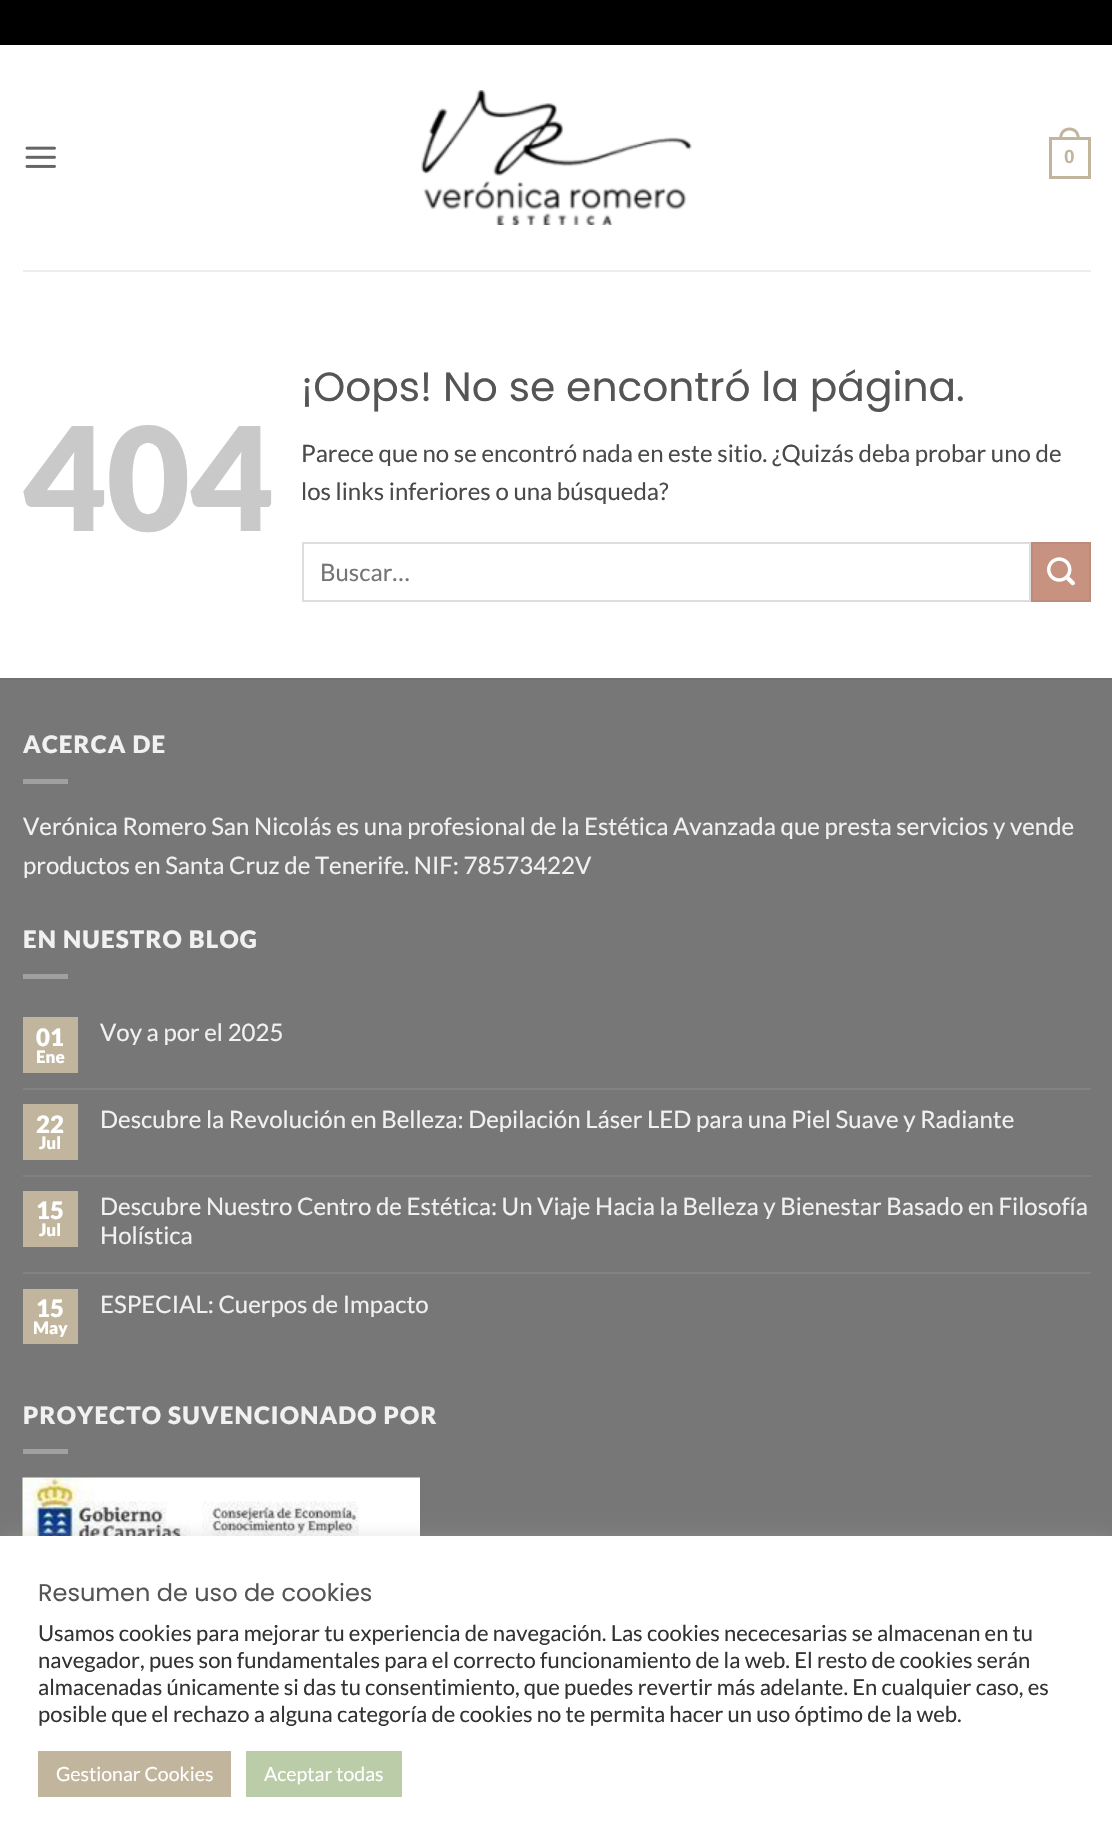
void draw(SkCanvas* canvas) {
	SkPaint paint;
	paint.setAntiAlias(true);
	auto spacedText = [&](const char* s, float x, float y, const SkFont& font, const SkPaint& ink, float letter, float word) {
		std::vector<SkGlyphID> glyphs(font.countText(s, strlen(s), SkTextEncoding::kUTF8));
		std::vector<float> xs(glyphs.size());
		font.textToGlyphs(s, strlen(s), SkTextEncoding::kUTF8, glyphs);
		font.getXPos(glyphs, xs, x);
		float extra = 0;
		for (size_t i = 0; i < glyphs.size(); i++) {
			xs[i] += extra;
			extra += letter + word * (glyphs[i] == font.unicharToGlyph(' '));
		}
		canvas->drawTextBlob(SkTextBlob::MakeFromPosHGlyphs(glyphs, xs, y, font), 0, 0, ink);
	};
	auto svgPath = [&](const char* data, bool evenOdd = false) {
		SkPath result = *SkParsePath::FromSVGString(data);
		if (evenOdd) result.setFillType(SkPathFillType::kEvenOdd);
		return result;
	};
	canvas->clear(0xffffffff);
	paint.setColor(0xff000000);
	canvas->drawRect(SkRect::MakeXYWH(0, 0, 1112, 45), paint);
	canvas->drawImageRect(SkImages::DeferredFromEncodedData(SkData::MakeFromFileName("img1.png")), SkRect::MakeXYWH(25, 146, 31, 22), SkSamplingOptions());
	canvas->drawImageRect(SkImages::DeferredFromEncodedData(SkData::MakeFromFileName("img2.png")), SkRect::MakeXYWH(421, 90, 271, 135), SkSamplingOptions());
	paint.setStroke(true);
	paint.setStrokeWidth(3);
	paint.setColor(0xffc2b59d);
	canvas->drawRect(SkRect::MakeXYWH(1050.5, 138.5, 39, 39), paint);
	paint.setStroke(false);
	canvas->drawPath(svgPath("M1069.5 127.5C1076.5 127.5 1080 133 1080 139.5H1059C1059 133 1062.5 127.5 1069.5 127.5ZM1069.5 130.5C1075 130.5 1077 135 1077 139.5H1062C1062 135 1064 130.5 1069.5 130.5Z", true), paint);
	SkFont f1(fontMgr->matchFamilyStyle("Liberation Sans", SkFontStyle::Bold()), 19);
	f1.setSubpixel(true);
	canvas->drawString("0", 1064, 163, f1, paint);
	paint.setColor(0xffededed);
	canvas->drawRect(SkRect::MakeXYWH(23, 270, 1068, 2), paint);
	SkFont f2(fontMgr->matchFamilyStyle("Lato", SkFontStyle(900, SkFontStyle::kNormal_Width, SkFontStyle::kUpright_Slant)), 144);
	f2.setSubpixel(true);
	paint.setColor(0xffc9c9c9);
	canvas->drawString("404", 23, 531, f2, paint);
	SkFont f3(fontMgr->matchFamilyStyle("Poppins", SkFontStyle::Normal()), 40.75);
	f3.setSubpixel(true);
	paint.setColor(0xff555555);
	canvas->drawString("¡Oops! No se encontró la página.", 301, 401, f3, paint);
	SkFont f4(fontMgr->matchFamilyStyle("Lato", SkFontStyle::Normal()), 24);
	f4.setSubpixel(true);
	paint.setColor(0xff4a4a4a);
	canvas->drawString("Parece que no se encontró nada en este sitio. ¿Quizás deba probar uno de", 301, 462, f4, paint);
	canvas->drawString("los links inferiores o una búsqueda?", 301, 500, f4, paint);
	paint.setStroke(true);
	paint.setStrokeWidth(2);
	paint.setColor(0xffdddddd);
	canvas->drawRect(SkRect::MakeXYWH(303, 543, 727, 58), paint);
	paint.setStroke(false);
	paint.setColor(0xff757575);
	canvas->drawString("Buscar…", 320, 581, f4, paint);
	paint.setColor(0xffc7927f);
	canvas->drawRect(SkRect::MakeXYWH(1032, 543, 58, 58), paint);
	paint.setStroke(true);
	paint.setColor(0xffbd8b79);
	canvas->drawRect(SkRect::MakeXYWH(1032, 543, 58, 58), paint);
	canvas->drawImageRect(SkImages::DeferredFromEncodedData(SkData::MakeFromFileName("img3.png")), SkRect::MakeXYWH(1047, 557, 28, 29), SkSamplingOptions());
	paint.setStroke(false);
	paint.setColor(0xff777777);
	canvas->drawRect(SkRect::MakeXYWH(0, 680, 1112, 856), paint);
	paint.setColor(0xff717171);
	canvas->drawRect(SkRect::MakeXYWH(0, 678, 1112, 2), paint);
	SkFont f5(fontMgr->matchFamilyStyle("Lato", SkFontStyle(900, SkFontStyle::kNormal_Width, SkFontStyle::kUpright_Slant)), 24);
	f5.setSubpixel(true);
	paint.setColor(0xfff1f1f1);
	spacedText("ACERCA DE", 23, 753, f5, paint, 1.2, 0);
	paint.setColor(0xffa0a0a0);
	canvas->drawRect(SkRect::MakeXYWH(23, 779, 45, 5), paint);
	paint.setColor(0xfff1f1f1);
	canvas->drawString("Verónica Romero San Nicolás es una profesional de la Estética Avanzada que presta servicios y vende", 23, 835, f4, paint);
	canvas->drawString("productos en Santa Cruz de Tenerife. NIF: 78573422V", 23, 874, f4, paint);
	spacedText("EN NUESTRO BLOG", 23, 948, f5, paint, 1.2, 0);
	paint.setColor(0xffa0a0a0);
	canvas->drawRect(SkRect::MakeXYWH(23, 974, 45, 5), paint);
	paint.setColor(0xffc2b59d);
	canvas->drawRect(SkRect::MakeXYWH(23, 1017, 55, 56), paint);
	paint.setColor(0xffffffff);
	canvas->drawString("01", 36, 1046, f5, paint);
	SkFont f6(fontMgr->matchFamilyStyle("Lato", SkFontStyle(900, SkFontStyle::kNormal_Width, SkFontStyle::kUpright_Slant)), 17);
	f6.setSubpixel(true);
	canvas->drawString("Ene", 36, 1063, f6, paint);
	paint.setColor(0xfff1f1f1);
	canvas->drawString("Voy a por el 2025", 100, 1041, f4, paint);
	paint.setColor(0xff828282);
	canvas->drawRect(SkRect::MakeXYWH(23, 1088, 1068, 2), paint);
	paint.setColor(0xffc2b59d);
	canvas->drawRect(SkRect::MakeXYWH(23, 1104, 55, 56), paint);
	paint.setColor(0xffffffff);
	canvas->drawString("22", 36, 1133, f5, paint);
	canvas->drawString("Jul", 39, 1149, f6, paint);
	paint.setColor(0xfff1f1f1);
	canvas->drawString("Descubre la Revolución en Belleza: Depilación Láser LED para una Piel Suave y Radiante", 100, 1128, f4, paint);
	paint.setColor(0xff828282);
	canvas->drawRect(SkRect::MakeXYWH(23, 1175, 1068, 2), paint);
	paint.setColor(0xffc2b59d);
	canvas->drawRect(SkRect::MakeXYWH(23, 1191, 55, 56), paint);
	paint.setColor(0xffffffff);
	canvas->drawString("15", 36, 1219, f5, paint);
	canvas->drawString("Jul", 39, 1236, f6, paint);
	paint.setColor(0xfff1f1f1);
	canvas->drawString("Descubre Nuestro Centro de Estética: Un Viaje Hacia la Belleza y Bienestar Basado en Filosofía", 100, 1215, f4, paint);
	canvas->drawString("Holística", 100, 1244, f4, paint);
	paint.setColor(0xff828282);
	canvas->drawRect(SkRect::MakeXYWH(23, 1272, 1068, 2), paint);
	paint.setColor(0xffc2b59d);
	canvas->drawRect(SkRect::MakeXYWH(23, 1289, 55, 55), paint);
	paint.setColor(0xffffffff);
	canvas->drawString("15", 36, 1317, f5, paint);
	canvas->drawString("May", 33, 1334, f6, paint);
	paint.setColor(0xfff1f1f1);
	canvas->drawString("ESPECIAL: Cuerpos de Impacto", 100, 1313, f4, paint);
	spacedText("PROYECTO SUVENCIONADO POR", 23, 1424, f5, paint, 1.2, 0);
	paint.setColor(0xffa0a0a0);
	canvas->drawRect(SkRect::MakeXYWH(23, 1449, 45, 5), paint);
	canvas->drawImageRect(SkImages::DeferredFromEncodedData(SkData::MakeFromFileName("img4.png")), SkRect::MakeXYWH(22, 1477, 398, 59), SkSamplingOptions());
	paint.setColor(0x4dacabab);
	paint.setMaskFilter(SkMaskFilter::MakeBlur(kNormal_SkBlurStyle, 7.5));
	canvas->drawRect(SkRect::MakeXYWH(0, 1535, 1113, 306), paint);
	paint.setMaskFilter(nullptr);
	paint.setColor(0xffffffff);
	canvas->drawRect(SkRect::MakeXYWH(0, 1536, 1112, 306), paint);
	SkFont f7(fontMgr->matchFamilyStyle("Poppins", SkFontStyle::Normal()), 24);
	f7.setSubpixel(true);
	paint.setColor(0xff555555);
	canvas->drawString("Resumen de uso de cookies", 38, 1601, f7, paint);
	SkFont f8(fontMgr->matchFamilyStyle("Lato", SkFontStyle::Normal()), 22);
	f8.setSubpixel(true);
	paint.setColor(0xff333333);
	canvas->drawString("Usamos cookies para mejorar tu experiencia de navegación. Las cookies nececesarias se almacenan en tu", 38, 1641, f8, paint);
	canvas->drawString("navegador, pues son fundamentales para el correcto funcionamiento de la web. El resto de cookies serán", 38, 1668, f8, paint);
	canvas->drawString("almacenadas únicamente si das tu consentimiento, que puedes revertir más adelante. En cualquier caso, es", 38, 1695, f8, paint);
	canvas->drawString("posible que el rechazo a alguna categoría de cookies no te permita hacer un uso óptimo de la web.", 38, 1722, f8, paint);
	paint.setColor(0xffc2b59d);
	canvas->drawRect(SkRect::MakeXYWH(38, 1751, 193, 46), paint);
	SkFont f9(fontMgr->matchFamilyStyle("Lato", SkFontStyle::Normal()), 19.5);
	f9.setSubpixel(true);
	paint.setColor(0xffffffff);
	canvas->drawString("Gestionar Cookies", 56, 1781, f9, paint);
	paint.setColor(0xffbacca8);
	canvas->drawRect(SkRect::MakeXYWH(246, 1751, 156, 46), paint);
	paint.setColor(0xffffffff);
	canvas->drawString("Aceptar todas", 264, 1781, f9, paint);
}
